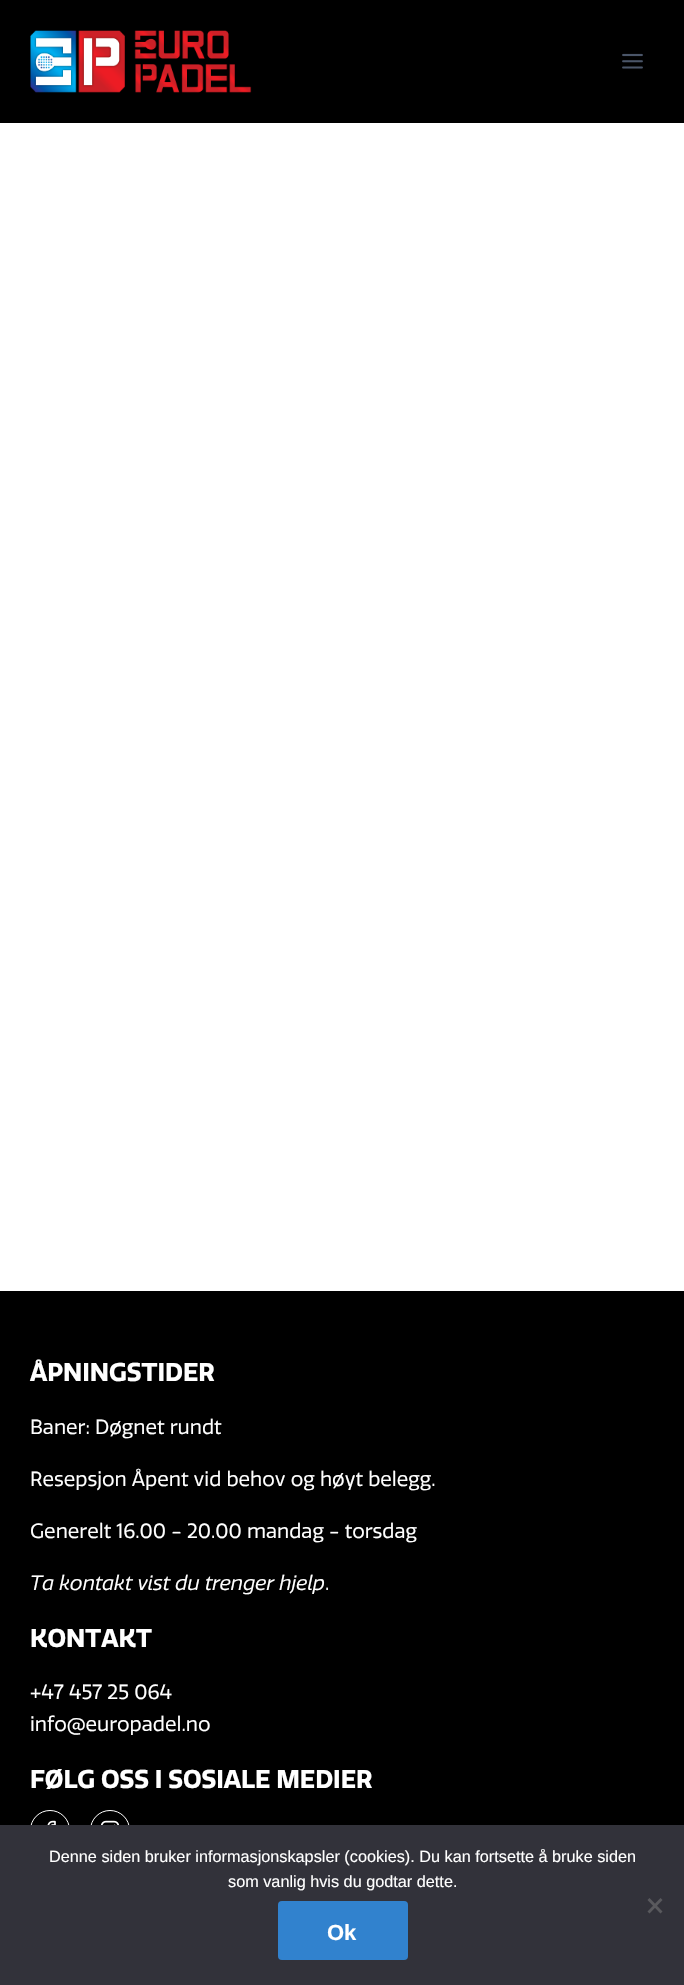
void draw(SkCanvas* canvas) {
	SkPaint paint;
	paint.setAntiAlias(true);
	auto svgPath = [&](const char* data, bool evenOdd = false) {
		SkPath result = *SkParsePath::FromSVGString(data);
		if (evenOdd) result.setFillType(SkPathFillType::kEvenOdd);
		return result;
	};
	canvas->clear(0xffffffff);
	paint.setColor(0xff000000);
	canvas->drawRect(SkRect::MakeXYWH(0, 0, 684, 123), paint);
	canvas->drawImageRect(SkImages::DeferredFromEncodedData(SkData::MakeFromFileName("img1.png")), SkRect::MakeXYWH(30, 30, 222, 63), SkSamplingOptions());
	canvas->drawImageRect(SkImages::DeferredFromEncodedData(SkData::MakeFromFileName("img2.png")), SkRect::MakeXYWH(622, 53, 21, 16), SkSamplingOptions());
	canvas->drawRect(SkRect::MakeXYWH(0, 1291, 684, 534), paint);
	SkFont f1(fontMgr->matchFamilyStyle("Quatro", SkFontStyle::Bold()), 25);
	f1.setSubpixel(true);
	paint.setColor(0xffffffff);
	canvas->drawString("ÅPNINGSTIDER", 30, 1381, f1, paint);
	SkFont f2(fontMgr->matchFamilyStyle("Quatro", SkFontStyle::Normal()), 20);
	f2.setSubpixel(true);
	canvas->drawString("Baner: Døgnet rundt", 30, 1434, f2, paint);
	canvas->drawString("Resepsjon Åpent vid behov og høyt belegg.", 30, 1486, f2, paint);
	canvas->drawString("Generelt 16.00 - 20.00 mandag - torsdag", 30, 1538, f2, paint);
	SkFont f3(fontMgr->matchFamilyStyle("Quatro", SkFontStyle::Italic()), 20);
	f3.setSubpixel(true);
	canvas->drawString("Ta kontakt vist du trenger hjelp", 30, 1590, f3, paint);
	canvas->drawString(".", 325, 1590, f2, paint);
	canvas->drawString("KONTAKT", 30, 1647, f1, paint);
	canvas->drawString("+47 457 25 064", 30, 1699, f2, paint);
	canvas->drawString("info@europadel.no", 30, 1731, f2, paint);
	canvas->drawString("FØLG OSS I SOSIALE MEDIER", 30, 1788, f1, paint);
	paint.setStroke(true);
	paint.setStrokeWidth(1);
	canvas->drawCircle(50, 1830, 19.5, paint);
	canvas->drawImageRect(SkImages::DeferredFromEncodedData(SkData::MakeFromFileName("img3.png")), SkRect::MakeXYWH(47, 1820, 9, 5), SkSamplingOptions());
	canvas->drawCircle(110, 1830, 19.5, paint);
	canvas->drawImageRect(SkImages::DeferredFromEncodedData(SkData::MakeFromFileName("img4.png")), SkRect::MakeXYWH(101, 1820, 18, 5), SkSamplingOptions());
	paint.setStroke(false);
	paint.setColor(0xff32323a);
	canvas->drawRect(SkRect::MakeXYWH(0, 1825, 684, 160), paint);
	SkFont f4(fontMgr->matchFamilyStyle("Liberation Sans", SkFontStyle::Normal()), 16.25);
	f4.setSubpixel(true);
	paint.setColor(0xffffffff);
	canvas->drawString("Denne siden bruker informasjonskapsler (cookies). Du kan fortsette å bruke siden", 49, 1862, f4, paint);
	canvas->drawString("som vanlig hvis du godtar dette.", 228, 1887, f4, paint);
	paint.setColor(0xff59595d);
	canvas->drawPath(svgPath("M660.5 1898L662.5 1900L649.5 1913.5L647.5 1911.5Z"), paint);
	canvas->drawPath(svgPath("M647.5 1900L649.5 1898L662.5 1911.5L660.5 1913.5Z"), paint);
	paint.setColor(0xff3182ce);
	canvas->drawRoundRect(SkRect::MakeXYWH(278, 1901, 130, 59), 4, 4, paint);
	SkFont f5(fontMgr->matchFamilyStyle("Liberation Sans", SkFontStyle::Bold()), 22);
	f5.setSubpixel(true);
	paint.setColor(0xffffffff);
	canvas->drawString("Ok", 327, 1940, f5, paint);
}
